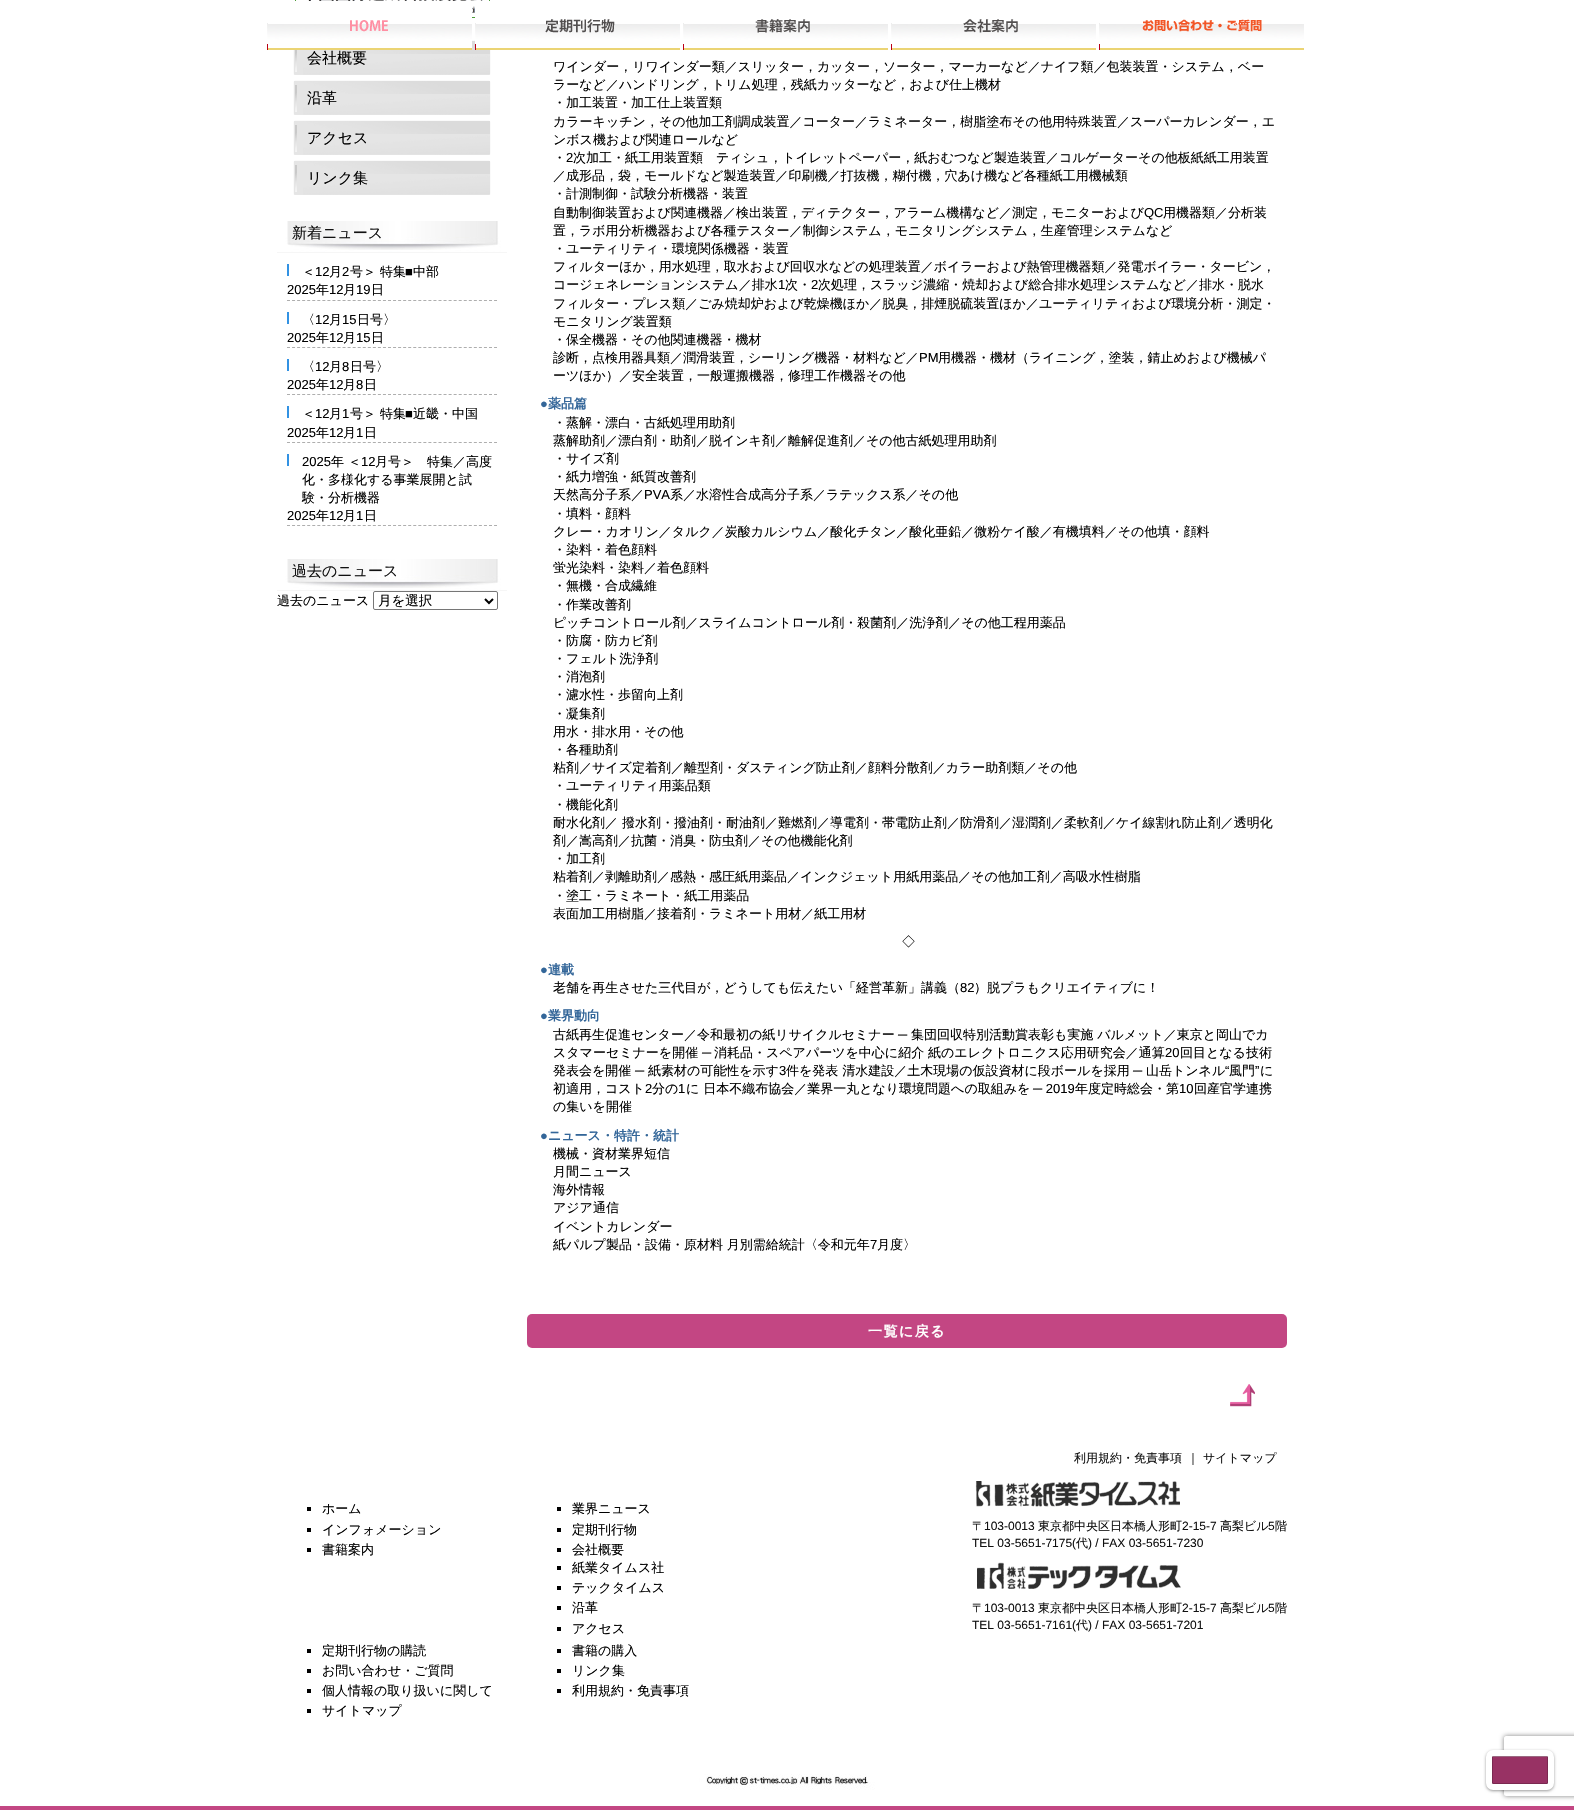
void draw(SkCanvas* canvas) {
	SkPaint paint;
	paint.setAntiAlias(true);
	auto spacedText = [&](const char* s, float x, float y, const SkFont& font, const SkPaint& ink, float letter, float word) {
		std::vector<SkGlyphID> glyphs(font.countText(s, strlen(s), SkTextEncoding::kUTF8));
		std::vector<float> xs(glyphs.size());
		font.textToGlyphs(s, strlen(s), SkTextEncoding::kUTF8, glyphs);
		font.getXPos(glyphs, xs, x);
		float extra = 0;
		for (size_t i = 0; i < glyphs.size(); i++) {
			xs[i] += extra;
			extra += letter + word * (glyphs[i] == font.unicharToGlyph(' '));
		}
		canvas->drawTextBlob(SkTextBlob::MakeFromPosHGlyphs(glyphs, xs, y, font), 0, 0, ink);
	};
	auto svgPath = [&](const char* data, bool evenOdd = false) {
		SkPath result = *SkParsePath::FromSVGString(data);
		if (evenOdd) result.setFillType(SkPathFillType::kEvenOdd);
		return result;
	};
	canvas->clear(0xffffffff);
	canvas->drawImageRect(SkImages::DeferredFromEncodedData(SkData::MakeFromFileName("img6.png")), SkRect::MakeXYWH(295, 0, 195, 18), SkSamplingOptions());
	canvas->drawImageRect(SkImages::DeferredFromEncodedData(SkData::MakeFromFileName("img7.png")), SkRect::MakeXYWH(293, 40, 198, 35), SkSamplingOptions());
	canvas->drawImageRect(SkImages::DeferredFromEncodedData(SkData::MakeFromFileName("img1.png")), SkRect::MakeXYWH(267, 1, 205, 49), SkSamplingOptions());
	canvas->drawImageRect(SkImages::DeferredFromEncodedData(SkData::MakeFromFileName("img2.png")), SkRect::MakeXYWH(475, 1, 205, 49), SkSamplingOptions());
	canvas->drawImageRect(SkImages::DeferredFromEncodedData(SkData::MakeFromFileName("img3.png")), SkRect::MakeXYWH(683, 6, 205, 44), SkSamplingOptions());
	canvas->drawImageRect(SkImages::DeferredFromEncodedData(SkData::MakeFromFileName("img4.png")), SkRect::MakeXYWH(891, 6, 205, 44), SkSamplingOptions());
	canvas->drawImageRect(SkImages::DeferredFromEncodedData(SkData::MakeFromFileName("img5.png")), SkRect::MakeXYWH(1099, 6, 205, 44), SkSamplingOptions());
	SkFont f1(fontMgr->matchFamilyStyle("WenQuanYi Zen Hei", SkFontStyle(500, SkFontStyle::kNormal_Width, SkFontStyle::kUpright_Slant)), 15);
	f1.setSubpixel(true);
	paint.setColor(0xff000000);
	canvas->drawString("会社概要", 307, 63, f1, paint);
	canvas->drawImageRect(SkImages::DeferredFromEncodedData(SkData::MakeFromFileName("img7.png")), SkRect::MakeXYWH(293, 80, 198, 35), SkSamplingOptions());
	canvas->drawString("沿革", 307, 103, f1, paint);
	canvas->drawImageRect(SkImages::DeferredFromEncodedData(SkData::MakeFromFileName("img7.png")), SkRect::MakeXYWH(293, 120, 198, 35), SkSamplingOptions());
	canvas->drawString("アクセス", 307, 143, f1, paint);
	canvas->drawImageRect(SkImages::DeferredFromEncodedData(SkData::MakeFromFileName("img7.png")), SkRect::MakeXYWH(293, 160, 198, 35), SkSamplingOptions());
	canvas->drawString("リンク集", 307, 183, f1, paint);
	paint.setColor(0xfff6f6f6);
	canvas->drawRect(SkRect::MakeXYWH(277, 252, 230, 1), paint);
	canvas->drawImageRect(SkImages::DeferredFromEncodedData(SkData::MakeFromFileName("img8.png")), SkRect::MakeXYWH(277, 213, 230, 39), SkSamplingOptions());
	paint.setColor(0xff111111);
	canvas->drawString("新着ニュース", 292, 238, f1, paint);
	paint.setStroke(true);
	paint.setStrokeWidth(1);
	paint.setColor(0xffaeaeae);
	paint.setPathEffect(SkDashPathEffect::Make({{3, 2.05f}}, 0));
	canvas->drawPath(svgPath("M287 300.5H497"), paint);
	paint.setPathEffect(nullptr);
	paint.setStroke(false);
	paint.setColor(0xff3292e3);
	canvas->drawRect(SkRect::MakeXYWH(287, 264, 2, 12), paint);
	SkFont f2(fontMgr->matchFamilyStyle("WenQuanYi Zen Hei", SkFontStyle(500, SkFontStyle::kNormal_Width, SkFontStyle::kUpright_Slant)), 13);
	f2.setSubpixel(true);
	paint.setColor(0xff000000);
	canvas->drawString("＜", 302, 276, f2, paint);
	SkFont f3(fontMgr->matchFamilyStyle("Liberation Sans", SkFontStyle::Normal()), 13);
	f3.setSubpixel(true);
	canvas->drawString("12", 315, 276, f3, paint);
	canvas->drawString("月", 329, 276, f2, paint);
	canvas->drawString("2", 342, 276, f3, paint);
	canvas->drawString("号＞ 特集", 350, 276, f2, paint);
	canvas->drawString("■", 405, 276, f3, paint);
	canvas->drawString("中部", 413, 276, f2, paint);
	canvas->drawString("2025", 287, 294, f3, paint);
	canvas->drawString("年", 316, 294, f2, paint);
	canvas->drawString("12", 329, 294, f3, paint);
	canvas->drawString("月", 343, 294, f2, paint);
	canvas->drawString("19", 356, 294, f3, paint);
	canvas->drawString("日", 371, 294, f2, paint);
	paint.setStroke(true);
	paint.setColor(0xffaeaeae);
	paint.setPathEffect(SkDashPathEffect::Make({{3, 2.05f}}, 0));
	canvas->drawPath(svgPath("M287 347.5H497"), paint);
	paint.setPathEffect(nullptr);
	paint.setStroke(false);
	paint.setColor(0xff3292e3);
	canvas->drawRect(SkRect::MakeXYWH(287, 312, 2, 12), paint);
	paint.setColor(0xff000000);
	canvas->drawString("〈", 302, 324, f2, paint);
	canvas->drawString("12", 315, 324, f3, paint);
	canvas->drawString("月", 329, 324, f2, paint);
	canvas->drawString("15", 342, 324, f3, paint);
	canvas->drawString("日号〉", 357, 324, f2, paint);
	canvas->drawString("2025", 287, 342, f3, paint);
	canvas->drawString("年", 316, 342, f2, paint);
	canvas->drawString("12", 329, 342, f3, paint);
	canvas->drawString("月", 343, 342, f2, paint);
	canvas->drawString("15", 356, 342, f3, paint);
	canvas->drawString("日", 371, 342, f2, paint);
	paint.setStroke(true);
	paint.setColor(0xffaeaeae);
	paint.setPathEffect(SkDashPathEffect::Make({{3, 2.05f}}, 0));
	canvas->drawPath(svgPath("M287 394.5H497"), paint);
	paint.setPathEffect(nullptr);
	paint.setStroke(false);
	paint.setColor(0xff3292e3);
	canvas->drawRect(SkRect::MakeXYWH(287, 359, 2, 12), paint);
	paint.setColor(0xff000000);
	canvas->drawString("〈", 302, 371, f2, paint);
	canvas->drawString("12", 315, 371, f3, paint);
	canvas->drawString("月", 329, 371, f2, paint);
	canvas->drawString("8", 342, 371, f3, paint);
	canvas->drawString("日号〉", 350, 371, f2, paint);
	canvas->drawString("2025", 287, 389, f3, paint);
	canvas->drawString("年", 316, 389, f2, paint);
	canvas->drawString("12", 329, 389, f3, paint);
	canvas->drawString("月", 343, 389, f2, paint);
	canvas->drawString("8", 356, 389, f3, paint);
	canvas->drawString("日", 364, 389, f2, paint);
	paint.setStroke(true);
	paint.setColor(0xffaeaeae);
	paint.setPathEffect(SkDashPathEffect::Make({{3, 2.05f}}, 0));
	canvas->drawPath(svgPath("M287 442.5H497"), paint);
	paint.setPathEffect(nullptr);
	paint.setStroke(false);
	paint.setColor(0xff3292e3);
	canvas->drawRect(SkRect::MakeXYWH(287, 406, 2, 12), paint);
	paint.setColor(0xff000000);
	canvas->drawString("＜", 302, 418, f2, paint);
	canvas->drawString("12", 315, 418, f3, paint);
	canvas->drawString("月", 329, 418, f2, paint);
	canvas->drawString("1", 342, 418, f3, paint);
	canvas->drawString("号＞ 特集", 350, 418, f2, paint);
	canvas->drawString("■", 405, 418, f3, paint);
	canvas->drawString("近畿・中国", 413, 418, f2, paint);
	canvas->drawString("2025", 287, 437, f3, paint);
	canvas->drawString("年", 316, 437, f2, paint);
	canvas->drawString("12", 329, 437, f3, paint);
	canvas->drawString("月", 343, 437, f2, paint);
	canvas->drawString("1", 356, 437, f3, paint);
	canvas->drawString("日", 364, 437, f2, paint);
	paint.setStroke(true);
	paint.setColor(0xffaeaeae);
	paint.setPathEffect(SkDashPathEffect::Make({{3, 2.05f}}, 0));
	canvas->drawPath(svgPath("M287 525.5H497"), paint);
	paint.setPathEffect(nullptr);
	paint.setStroke(false);
	paint.setColor(0xff3292e3);
	canvas->drawRect(SkRect::MakeXYWH(287, 454, 2, 12), paint);
	paint.setColor(0xff000000);
	canvas->drawString("2025", 302, 466, f3, paint);
	canvas->drawString("年 ＜", 331, 466, f2, paint);
	canvas->drawString("12", 361, 466, f3, paint);
	canvas->drawString("月号＞　特集／高度", 375, 466, f2, paint);
	canvas->drawString("化・多様化する事業展開と試", 302, 484, f2, paint);
	canvas->drawString("験・分析機器", 302, 502, f2, paint);
	canvas->drawString("2025", 287, 520, f3, paint);
	canvas->drawString("年", 316, 520, f2, paint);
	canvas->drawString("12", 329, 520, f3, paint);
	canvas->drawString("月", 343, 520, f2, paint);
	canvas->drawString("1", 356, 520, f3, paint);
	canvas->drawString("日", 364, 520, f2, paint);
	paint.setColor(0xfff6f6f6);
	canvas->drawRect(SkRect::MakeXYWH(277, 590, 230, 1), paint);
	canvas->drawImageRect(SkImages::DeferredFromEncodedData(SkData::MakeFromFileName("img8.png")), SkRect::MakeXYWH(277, 551, 230, 39), SkSamplingOptions());
	paint.setColor(0xff111111);
	canvas->drawString("過去のニュース", 292, 576, f1, paint);
	paint.setColor(0xff000000);
	canvas->drawString("過去のニュース", 277, 605, f2, paint);
	paint.setStroke(true);
	paint.setColor(0xff767676);
	canvas->drawRoundRect(SkRect::MakeXYWH(373.5, 591.5, 124, 18), 1.5, 1.5, paint);
	paint.setStrokeWidth(2);
	paint.setColor(0xff000000);
	canvas->drawPath(svgPath("M485 599L489 603L493 599"), paint);
	SkFont f4(fontMgr->matchFamilyStyle("WenQuanYi Zen Hei", SkFontStyle(500, SkFontStyle::kNormal_Width, SkFontStyle::kUpright_Slant)), 13.5);
	f4.setSubpixel(true);
	paint.setStroke(false);
	canvas->drawString("月を選択", 378, 605, f4, paint);
	canvas->drawString("ワインダー，リワインダー類／スリッター，カッター，ソーター，マーカーなど／ナイフ類／包装装置・システム，ベー", 553, 71, f2, paint);
	canvas->drawString("ラーなど／ハンドリング，トリム処理，残紙カッターなど，および仕上機材", 553, 89, f2, paint);
	canvas->drawString("・加工装置・加工仕上装置類", 553, 107, f2, paint);
	canvas->drawString("カラーキッチン，その他加工剤調成装置／コーター／ラミネーター，樹脂塗布その他用特殊装置／スーパーカレンダー，エ", 553, 126, f2, paint);
	canvas->drawString("ンボス機および関連ロールなど", 553, 144, f2, paint);
	canvas->drawString("・", 553, 162, f2, paint);
	canvas->drawString("2", 566, 162, f3, paint);
	canvas->drawString("次加工・紙工用装置類　ティシュ，トイレットペーパー，紙おむつなど製造装置／コルゲーターその他板紙紙工用装置", 573, 162, f2, paint);
	canvas->drawString("／成形品，袋，モールドなど製造装置／印刷機／打抜機，糊付機，穴あけ機など各種紙工用機械類", 553, 180, f2, paint);
	canvas->drawString("・計測制御・試験分析機器・装置", 553, 198, f2, paint);
	canvas->drawString("自動制御装置および関連機器／検出装置，ディテクター，アラーム機構など／測定，モニターおよび", 553, 217, f2, paint);
	canvas->drawString("QC", 1144, 217, f3, paint);
	canvas->drawString("用機器類／分析装", 1163, 217, f2, paint);
	canvas->drawString("置，ラボ用分析機器および各種テスター／制御システム，モニタリングシステム，生産管理システムなど", 553, 235, f2, paint);
	canvas->drawString("・ユーティリティ・環境関係機器・装置", 553, 253, f2, paint);
	canvas->drawString("フィルターほか，用水処理，取水および回収水などの処理装置／ボイラーおよび熱管理機器類／発電ボイラー・タービン，", 553, 271, f2, paint);
	canvas->drawString("コージェネレーションシステム／排水", 553, 289, f2, paint);
	canvas->drawString("1", 778, 289, f3, paint);
	canvas->drawString("次・", 785, 289, f2, paint);
	canvas->drawString("2", 811, 289, f3, paint);
	canvas->drawString("次処理，スラッジ濃縮・焼却および総合排水処理システムなど／排水・脱水", 818, 289, f2, paint);
	canvas->drawString("フィルター・プレス類／ごみ焼却炉および乾燥機ほか／脱臭，排煙脱硫装置ほか／ユーティリティおよび環境分析・測定・", 553, 308, f2, paint);
	canvas->drawString("モニタリング装置類", 553, 326, f2, paint);
	canvas->drawString("・保全機器・その他関連機器・機材", 553, 344, f2, paint);
	canvas->drawString("診断，点検用器具類／潤滑装置，シーリング機器・材料など／", 553, 362, f2, paint);
	canvas->drawString("PM", 919, 362, f3, paint);
	canvas->drawString("用機器・機材（ライニング，塗装，錆止めおよび機械パ", 938, 362, f2, paint);
	canvas->drawString("ーツほか）／安全装置，一般運搬機器，修理工作機器その他", 553, 380, f2, paint);
	SkFont f5(fontMgr->matchFamilyStyle("Liberation Sans", SkFontStyle::Bold()), 13);
	f5.setSubpixel(true);
	paint.setColor(0xff336699);
	canvas->drawString("●", 540, 408, f5, paint);
	SkFont f6(fontMgr->matchFamilyStyle("WenQuanYi Zen Hei", SkFontStyle::Bold()), 13);
	f6.setSubpixel(true);
	canvas->drawString("薬品篇", 548, 408, f6, paint);
	paint.setColor(0xff000000);
	canvas->drawString("・蒸解・漂白・古紙処理用助剤", 553, 427, f2, paint);
	canvas->drawString("蒸解助剤／漂白剤・助剤／脱インキ剤／離解促進剤／その他古紙処理用助剤", 553, 445, f2, paint);
	canvas->drawString("・サイズ剤", 553, 463, f2, paint);
	canvas->drawString("・紙力増強・紙質改善剤", 553, 481, f2, paint);
	canvas->drawString("天然高分子系／", 553, 499, f2, paint);
	canvas->drawString("PVA", 644, 499, f3, paint);
	canvas->drawString("系／水溶性合成高分子系／ラテックス系／その他", 670, 499, f2, paint);
	canvas->drawString("・填料・顔料", 553, 518, f2, paint);
	canvas->drawString("クレー・カオリン／タルク／炭酸カルシウム／酸化チタン／酸化亜鉛／微粉ケイ酸／有機填料／その他填・顔料", 553, 536, f2, paint);
	canvas->drawString("・染料・着色顔料", 553, 554, f2, paint);
	canvas->drawString("蛍光染料・染料／着色顔料", 553, 572, f2, paint);
	canvas->drawString("・無機・合成繊維", 553, 590, f2, paint);
	canvas->drawString("・作業改善剤", 553, 609, f2, paint);
	canvas->drawString("ピッチコントロール剤／スライムコントロール剤・殺菌剤／洗浄剤／その他工程用薬品", 553, 627, f2, paint);
	canvas->drawString("・防腐・防カビ剤", 553, 645, f2, paint);
	canvas->drawString("・フェルト洗浄剤", 553, 663, f2, paint);
	canvas->drawString("・消泡剤", 553, 681, f2, paint);
	canvas->drawString("・濾水性・歩留向上剤", 553, 699, f2, paint);
	canvas->drawString("・凝集剤", 553, 718, f2, paint);
	canvas->drawString("用水・排水用・その他", 553, 736, f2, paint);
	canvas->drawString("・各種助剤", 553, 754, f2, paint);
	canvas->drawString("粘剤／サイズ定着剤／離型剤・ダスティング防止剤／顔料分散剤／カラー助剤類／その他", 553, 772, f2, paint);
	canvas->drawString("・ユーティリティ用薬品類", 553, 790, f2, paint);
	canvas->drawString("・機能化剤", 553, 809, f2, paint);
	canvas->drawString("耐水化剤／ 撥水剤・撥油剤・耐油剤／難燃剤／導電剤・帯電防止剤／防滑剤／湿潤剤／柔軟剤／ケイ線割れ防止剤／透明化", 553, 827, f2, paint);
	canvas->drawString("剤／嵩高剤／抗菌・消臭・防虫剤／その他機能化剤", 553, 845, f2, paint);
	canvas->drawString("・加工剤", 553, 863, f2, paint);
	canvas->drawString("粘着剤／剥離助剤／感熱・感圧紙用薬品／インクジェット用紙用薬品／その他加工剤／高吸水性樹脂", 553, 881, f2, paint);
	canvas->drawString("・塗工・ラミネート・紙工用薬品", 553, 900, f2, paint);
	canvas->drawString("表面加工用樹脂／接着剤・ラミネート用材／紙工用材", 553, 918, f2, paint);
	canvas->drawString("◇", 902, 946, f2, paint);
	paint.setColor(0xff336699);
	canvas->drawString("●", 540, 974, f5, paint);
	canvas->drawString("連載", 548, 974, f6, paint);
	paint.setColor(0xff000000);
	canvas->drawString("老舗を再生させた三代目が，どうしても伝えたい「経営革新」講義（", 553, 992, f2, paint);
	canvas->drawString("82", 960, 992, f3, paint);
	canvas->drawString("）脱プラもクリエイティブに！", 974, 992, f2, paint);
	paint.setColor(0xff336699);
	canvas->drawString("●", 540, 1020, f5, paint);
	canvas->drawString("業界動向", 548, 1020, f6, paint);
	paint.setColor(0xff000000);
	canvas->drawString("古紙再生促進センター／令和最初の紙リサイクルセミナー", 553, 1039, f2, paint);
	canvas->drawString("─", 898, 1039, f3, paint);
	canvas->drawString("集団回収特別活動賞表彰も実施 バルメット／東京と岡山でカ", 911, 1039, f2, paint);
	canvas->drawString("スタマーセミナーを開催", 553, 1057, f2, paint);
	canvas->drawString("─", 702, 1057, f3, paint);
	canvas->drawString("消耗品・スペアパーツを中心に紹介 紙のエレクトロニクス応用研究会／通算", 714, 1057, f2, paint);
	canvas->drawString("20", 1165, 1057, f3, paint);
	canvas->drawString("回目となる技術", 1180, 1057, f2, paint);
	canvas->drawString("発表会を開催", 553, 1075, f2, paint);
	canvas->drawString("─", 635, 1075, f3, paint);
	canvas->drawString("紙素材の可能性を示す", 648, 1075, f2, paint);
	canvas->drawString("3", 779, 1075, f3, paint);
	canvas->drawString("件を発表 清水建設／土木現場の仮設資材に段ボールを採用", 786, 1075, f2, paint);
	canvas->drawString("─", 1133, 1075, f3, paint);
	canvas->drawString("山岳トンネル", 1146, 1075, f2, paint);
	canvas->drawString("“", 1225, 1075, f3, paint);
	canvas->drawString("風門", 1229, 1075, f2, paint);
	canvas->drawString("”", 1255, 1075, f3, paint);
	canvas->drawString("に", 1260, 1075, f2, paint);
	canvas->drawString("初適用，コスト", 553, 1093, f2, paint);
	canvas->drawString("2", 645, 1093, f3, paint);
	canvas->drawString("分の", 652, 1093, f2, paint);
	canvas->drawString("1", 678, 1093, f3, paint);
	canvas->drawString("に 日本不織布協会／業界一丸となり環境問題への取組みを", 686, 1093, f2, paint);
	canvas->drawString("─ 2019", 1033, 1093, f3, paint);
	canvas->drawString("年度定時総会・第", 1075, 1093, f2, paint);
	canvas->drawString("10", 1179, 1093, f3, paint);
	canvas->drawString("回産官学連携", 1194, 1093, f2, paint);
	canvas->drawString("の集いを開催", 553, 1111, f2, paint);
	paint.setColor(0xff336699);
	canvas->drawString("●", 540, 1140, f5, paint);
	canvas->drawString("ニュース・特許・統計", 548, 1140, f6, paint);
	paint.setColor(0xff000000);
	canvas->drawString("機械・資材業界短信", 553, 1158, f2, paint);
	canvas->drawString("月間ニュース", 553, 1176, f2, paint);
	canvas->drawString("海外情報", 553, 1194, f2, paint);
	canvas->drawString("アジア通信", 553, 1212, f2, paint);
	canvas->drawString("イベントカレンダー", 553, 1231, f2, paint);
	canvas->drawString("紙パルプ製品・設備・原材料 月別需給統計〈令和元年", 553, 1249, f2, paint);
	canvas->drawString("7", 870, 1249, f3, paint);
	canvas->drawString("月度〉", 877, 1249, f2, paint);
	paint.setColor(0xffc34683);
	canvas->drawRoundRect(SkRect::MakeXYWH(527, 1314, 760, 34), 5, 5, paint);
	SkFont f7(fontMgr->matchFamilyStyle("WenQuanYi Zen Hei", SkFontStyle::Bold()), 14);
	f7.setSubpixel(true);
	paint.setColor(0xffffffff);
	spacedText("一覧に戻る", 868, 1336, f7, paint, 1.5, 0);
	canvas->drawImageRect(SkImages::DeferredFromEncodedData(SkData::MakeFromFileName("img9.png")), SkRect::MakeXYWH(1230, 1384, 25, 23), SkSamplingOptions());
	canvas->drawImageRect(SkImages::DeferredFromEncodedData(SkData::MakeFromFileName("img10.png")), SkRect::MakeXYWH(0, 1774, 1574, 36), SkSamplingOptions());
	SkFont f8(fontMgr->matchFamilyStyle("WenQuanYi Zen Hei", SkFontStyle(500, SkFontStyle::kNormal_Width, SkFontStyle::kUpright_Slant)), 12);
	f8.setSubpixel(true);
	paint.setColor(0xff111111);
	canvas->drawString("利用規約・免責事項", 1074, 1462, f8, paint);
	canvas->drawString("｜", 1187, 1462, f8, paint);
	canvas->drawString("サイトマップ", 1203, 1462, f8, paint);
	paint.setColor(0xff000000);
	canvas->drawRect(SkRect::MakeXYWH(307, 1507, 4, 4), paint);
	canvas->drawString("ホーム", 322, 1513, f2, paint);
	canvas->drawRect(SkRect::MakeXYWH(557, 1507, 4, 4), paint);
	canvas->drawString("業界ニュース", 572, 1513, f2, paint);
	canvas->drawRect(SkRect::MakeXYWH(307, 1528, 4, 4), paint);
	canvas->drawString("インフォメーション", 322, 1534, f2, paint);
	canvas->drawRect(SkRect::MakeXYWH(557, 1528, 4, 4), paint);
	canvas->drawString("定期刊行物", 572, 1534, f2, paint);
	canvas->drawRect(SkRect::MakeXYWH(307, 1548, 4, 4), paint);
	canvas->drawString("書籍案内", 322, 1554, f2, paint);
	canvas->drawRect(SkRect::MakeXYWH(557, 1548, 4, 4), paint);
	canvas->drawString("会社概要", 572, 1554, f2, paint);
	canvas->drawRect(SkRect::MakeXYWH(557, 1566, 4, 4), paint);
	canvas->drawString("紙業タイムス社", 572, 1572, f2, paint);
	canvas->drawRect(SkRect::MakeXYWH(557, 1586, 4, 4), paint);
	canvas->drawString("テックタイムス", 572, 1592, f2, paint);
	canvas->drawRect(SkRect::MakeXYWH(557, 1606, 4, 4), paint);
	canvas->drawString("沿革", 572, 1612, f2, paint);
	canvas->drawRect(SkRect::MakeXYWH(557, 1627, 4, 4), paint);
	canvas->drawString("アクセス", 572, 1633, f2, paint);
	canvas->drawRect(SkRect::MakeXYWH(307, 1649, 4, 4), paint);
	canvas->drawString("定期刊行物の購読", 322, 1655, f2, paint);
	canvas->drawRect(SkRect::MakeXYWH(557, 1649, 4, 4), paint);
	canvas->drawString("書籍の購入", 572, 1655, f2, paint);
	canvas->drawRect(SkRect::MakeXYWH(307, 1669, 4, 4), paint);
	canvas->drawString("お問い合わせ・ご質問", 322, 1675, f2, paint);
	canvas->drawRect(SkRect::MakeXYWH(557, 1669, 4, 4), paint);
	canvas->drawString("リンク集", 572, 1675, f2, paint);
	canvas->drawRect(SkRect::MakeXYWH(307, 1689, 4, 4), paint);
	canvas->drawString("個人情報の取り扱いに関して", 322, 1695, f2, paint);
	canvas->drawRect(SkRect::MakeXYWH(557, 1689, 4, 4), paint);
	canvas->drawString("利用規約・免責事項", 572, 1695, f2, paint);
	canvas->drawRect(SkRect::MakeXYWH(307, 1709, 4, 4), paint);
	canvas->drawString("サイトマップ", 322, 1715, f2, paint);
	canvas->drawImageRect(SkImages::DeferredFromEncodedData(SkData::MakeFromFileName("img11.png")), SkRect::MakeXYWH(975, 1481, 205, 26), SkSamplingOptions());
	paint.setColor(0xff111111);
	canvas->drawString("〒", 972, 1530, f8, paint);
	SkFont f9(fontMgr->matchFamilyStyle("Liberation Sans", SkFontStyle::Normal()), 12);
	f9.setSubpixel(true);
	canvas->drawString("103-0013", 984, 1530, f9, paint);
	canvas->drawString("東京都中央区日本橋人形町", 1038, 1530, f8, paint);
	canvas->drawString("2-15-7", 1182, 1530, f9, paint);
	canvas->drawString("高梨ビル", 1220, 1530, f8, paint);
	canvas->drawString("5", 1268, 1530, f9, paint);
	canvas->drawString("階", 1275, 1530, f8, paint);
	canvas->drawString("TEL 03-5651-7175(", 972, 1547, f9, paint);
	canvas->drawString("代", 1076, 1547, f8, paint);
	canvas->drawString(") / FAX 03-5651-7230", 1088, 1547, f9, paint);
	canvas->drawImageRect(SkImages::DeferredFromEncodedData(SkData::MakeFromFileName("img12.png")), SkRect::MakeXYWH(977, 1562, 204, 27), SkSamplingOptions());
	canvas->drawString("〒", 972, 1612, f8, paint);
	canvas->drawString("103-0013", 984, 1612, f9, paint);
	canvas->drawString("東京都中央区日本橋人形町", 1038, 1612, f8, paint);
	canvas->drawString("2-15-7", 1182, 1612, f9, paint);
	canvas->drawString("高梨ビル", 1220, 1612, f8, paint);
	canvas->drawString("5", 1268, 1612, f9, paint);
	canvas->drawString("階", 1275, 1612, f8, paint);
	canvas->drawString("TEL 03-5651-7161(", 972, 1629, f9, paint);
	canvas->drawString("代", 1076, 1629, f8, paint);
	canvas->drawString(") / FAX 03-5651-7201", 1088, 1629, f9, paint);
	canvas->save();
	canvas->clipPath(svgPath("M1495 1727H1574V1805H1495ZM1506 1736H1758C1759 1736 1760 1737 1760 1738V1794C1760 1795 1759 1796 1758 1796H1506C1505 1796 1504 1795 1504 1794V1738C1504 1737 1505 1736 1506 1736Z", true), true);
	paint.setColor(0xff808080);
	paint.setMaskFilter(SkMaskFilter::MakeBlur(kNormal_SkBlurStyle, 2.5));
	canvas->drawRoundRect(SkRect::MakeXYWH(1504, 1736, 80, 60), 2, 2, paint);
	paint.setMaskFilter(nullptr);
	canvas->restore();
	paint.setColor(0x66000000);
	paint.setMaskFilter(SkMaskFilter::MakeBlur(kNormal_SkBlurStyle, 1.5));
	canvas->drawRoundRect(SkRect::MakeXYWH(1486, 1751, 68, 40), 7, 7, paint);
	paint.setMaskFilter(nullptr);
	paint.setColor(0xff983264);
	canvas->drawRoundRect(SkRect::MakeXYWH(1492, 1756, 56, 28), 1, 1, paint);
	paint.setColor(0x66ffffff);
	canvas->drawPath(svgPath("M1493 1757H1547C1548 1757 1548 1757 1548 1758C1548 1753 1542 1756 1538 1756H1502C1498 1756 1492 1753 1492 1758C1492 1757 1492 1757 1493 1757Z"), paint);
	paint.setStroke(true);
	paint.setStrokeWidth(1);
	paint.setColor(0x33000000);
	canvas->drawRect(SkRect::MakeXYWH(1492.5, 1756.5, 55, 27), paint);
	paint.setStrokeWidth(6);
	paint.setColor(0xffffffff);
	canvas->drawRoundRect(SkRect::MakeXYWH(1489, 1753, 62, 34), 4, 4, paint);
}
